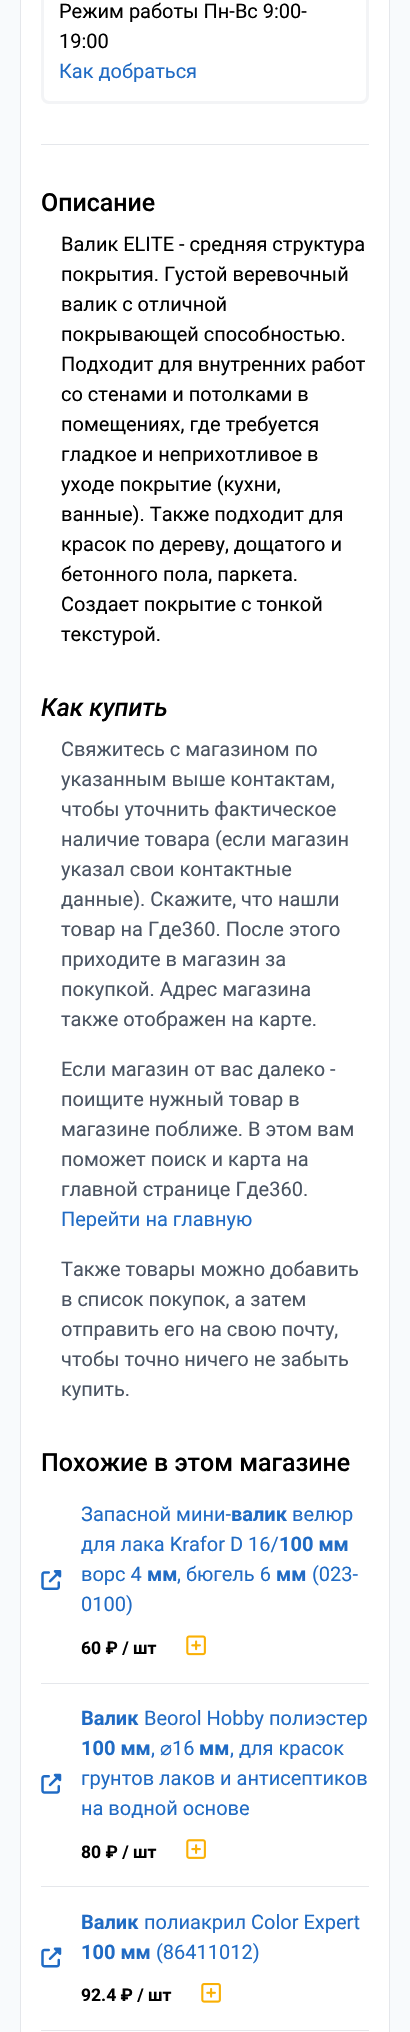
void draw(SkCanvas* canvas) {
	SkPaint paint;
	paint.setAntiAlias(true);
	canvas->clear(0xfff8fafc);
	paint.setColor(0xffffffff);
	canvas->drawRect(SkRect::MakeXYWH(20.5, -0.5, 369, 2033), paint);
	paint.setStroke(true);
	paint.setStrokeWidth(1);
	paint.setColor(0xffe5e7eb);
	canvas->drawRect(SkRect::MakeXYWH(20.5, -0.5, 369, 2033), paint);
	paint.setStrokeWidth(3);
	paint.setColor(0xfff3f4f6);
	canvas->drawRoundRect(SkRect::MakeXYWH(42.5, -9.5, 325, 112), 6.5, 6.5, paint);
	SkFont f1(fontMgr->matchFamilyStyle("Roboto", SkFontStyle::Normal()), 20);
	f1.setSubpixel(true);
	paint.setStroke(false);
	paint.setColor(0xff000000);
	canvas->drawString("Режим работы Пн-Вс 9:00-", 59, 18, f1, paint);
	canvas->drawString("19:00", 59, 48, f1, paint);
	paint.setColor(0xff206bc4);
	canvas->drawString("Как добраться", 59, 78, f1, paint);
	paint.setColor(0xffe5e7eb);
	canvas->drawRect(SkRect::MakeXYWH(41, 144, 328, 1), paint);
	SkFont f2(fontMgr->matchFamilyStyle("Roboto", SkFontStyle(500, SkFontStyle::kNormal_Width, SkFontStyle::kUpright_Slant)), 25);
	f2.setSubpixel(true);
	paint.setColor(0xff000000);
	canvas->drawString("Описание", 41, 211, f2, paint);
	canvas->drawString("Валик ELITE - средняя структура", 61, 251, f1, paint);
	canvas->drawString("покрытия. Густой веревочный", 61, 281, f1, paint);
	canvas->drawString("валик с отличной", 61, 311, f1, paint);
	canvas->drawString("покрывающей способностью.", 61, 341, f1, paint);
	canvas->drawString("Подходит для внутренних работ", 61, 371, f1, paint);
	canvas->drawString("со стенами и потолками в", 61, 401, f1, paint);
	canvas->drawString("помещениях, где требуется", 61, 431, f1, paint);
	canvas->drawString("гладкое и неприхотливое в", 61, 461, f1, paint);
	canvas->drawString("уходе покрытие (кухни,", 61, 491, f1, paint);
	canvas->drawString("ванные). Также подходит для", 61, 521, f1, paint);
	canvas->drawString("красок по дереву, дощатого и", 61, 551, f1, paint);
	canvas->drawString("бетонного пола, паркета.", 61, 581, f1, paint);
	canvas->drawString("Создает покрытие с тонкой", 61, 611, f1, paint);
	canvas->drawString("текстурой.", 61, 641, f1, paint);
	SkFont f3(fontMgr->matchFamilyStyle("Roboto", SkFontStyle(500, SkFontStyle::kNormal_Width, SkFontStyle::kItalic_Slant)), 25);
	f3.setSubpixel(true);
	canvas->drawString("Как купить", 41, 716, f3, paint);
	paint.setColor(0xff4b5563);
	canvas->drawString("Свяжитесь с магазином по", 61, 756, f1, paint);
	canvas->drawString("указанным выше контактам,", 61, 786, f1, paint);
	canvas->drawString("чтобы уточнить фактическое", 61, 816, f1, paint);
	canvas->drawString("наличие товара (если магазин", 61, 846, f1, paint);
	canvas->drawString("указал свои контактные", 61, 876, f1, paint);
	canvas->drawString("данные). Скажите, что нашли", 61, 906, f1, paint);
	canvas->drawString("товар на Где360. После этого", 61, 936, f1, paint);
	canvas->drawString("приходите в магазин за", 61, 966, f1, paint);
	canvas->drawString("покупкой. Адрес магазина", 61, 996, f1, paint);
	canvas->drawString("также отображен на карте.", 61, 1026, f1, paint);
	canvas->drawString("Если магазин от вас далеко -", 61, 1076, f1, paint);
	canvas->drawString("поищите нужный товар в", 61, 1106, f1, paint);
	canvas->drawString("магазине поближе. В этом вам", 61, 1136, f1, paint);
	canvas->drawString("поможет поиск и карта на", 61, 1166, f1, paint);
	canvas->drawString("главной странице Где360.", 61, 1196, f1, paint);
	paint.setColor(0xff206bc4);
	canvas->drawString("Перейти на главную", 61, 1226, f1, paint);
	paint.setColor(0xff4b5563);
	canvas->drawString("Также товары можно добавить", 61, 1276, f1, paint);
	canvas->drawString("в список покупок, а затем", 61, 1306, f1, paint);
	canvas->drawString("отправить его на свою почту,", 61, 1336, f1, paint);
	canvas->drawString("чтобы точно ничего не забыть", 61, 1366, f1, paint);
	canvas->drawString("купить.", 61, 1396, f1, paint);
	paint.setColor(0xff000000);
	canvas->drawString("Похожие в этом магазине", 41, 1471, f2, paint);
	paint.setColor(0xffe5e7eb);
	canvas->drawRect(SkRect::MakeXYWH(41, 1683, 328, 1), paint);
	canvas->drawImageRect(SkImages::DeferredFromEncodedData(SkData::MakeFromFileName("img1.png")), SkRect::MakeXYWH(41, 1570, 21, 20), SkSamplingOptions());
	paint.setColor(0xff206bc4);
	canvas->drawString("Запасной мини-", 81, 1521, f1, paint);
	SkFont f4(fontMgr->matchFamilyStyle("Roboto", SkFontStyle::Bold()), 20);
	f4.setSubpixel(true);
	canvas->drawString("валик", 231, 1521, f4, paint);
	canvas->drawString("велюр", 292, 1521, f1, paint);
	canvas->drawString("для лака Krafor D 16/", 81, 1551, f1, paint);
	canvas->drawString("100 мм", 279, 1551, f4, paint);
	canvas->drawString("ворс 4", 81, 1581, f1, paint);
	canvas->drawString("мм", 147, 1581, f4, paint);
	canvas->drawString(", бюгель 6", 177, 1581, f1, paint);
	canvas->drawString("мм", 276, 1581, f4, paint);
	canvas->drawString("(023-", 312, 1581, f1, paint);
	canvas->drawString("0100)", 81, 1611, f1, paint);
	SkFont f5(fontMgr->matchFamilyStyle("Roboto", SkFontStyle::Bold()), 17.5);
	f5.setSubpixel(true);
	paint.setColor(0xff000000);
	canvas->drawString("60 ₽ / шт", 81, 1654, f5, paint);
	canvas->drawImageRect(SkImages::DeferredFromEncodedData(SkData::MakeFromFileName("img2.png")), SkRect::MakeXYWH(186, 1635, 20, 21), SkSamplingOptions());
	paint.setColor(0xffe5e7eb);
	canvas->drawRect(SkRect::MakeXYWH(41, 1886, 328, 1), paint);
	canvas->drawImageRect(SkImages::DeferredFromEncodedData(SkData::MakeFromFileName("img3.png")), SkRect::MakeXYWH(41, 1773, 21, 21), SkSamplingOptions());
	paint.setColor(0xff206bc4);
	canvas->drawString("Валик", 81, 1725, f4, paint);
	canvas->drawString("Beorol Hobby полиэстер", 144, 1725, f1, paint);
	canvas->drawString("100 мм", 81, 1755, f4, paint);
	canvas->drawString(",", 151, 1755, f1, paint);
	SkFont f6(fontMgr->matchFamilyStyle("DejaVu Sans", SkFontStyle::Normal()), 20);
	f6.setSubpixel(true);
	canvas->drawString("⌀", 160, 1755, f6, paint);
	canvas->drawString("16", 172, 1755, f1, paint);
	canvas->drawString("мм", 199, 1755, f4, paint);
	canvas->drawString(", для красок", 230, 1755, f1, paint);
	canvas->drawString("грунтов лаков и антисептиков", 81, 1785, f1, paint);
	canvas->drawString("на водной основе", 81, 1815, f1, paint);
	paint.setColor(0xff000000);
	canvas->drawString("80 ₽ / шт", 81, 1858, f5, paint);
	canvas->drawImageRect(SkImages::DeferredFromEncodedData(SkData::MakeFromFileName("img4.png")), SkRect::MakeXYWH(186, 1839, 20, 20), SkSamplingOptions());
	paint.setColor(0xffe5e7eb);
	canvas->drawRect(SkRect::MakeXYWH(41, 2030, 328, 1), paint);
	canvas->drawImageRect(SkImages::DeferredFromEncodedData(SkData::MakeFromFileName("img5.png")), SkRect::MakeXYWH(41, 1947, 21, 21), SkSamplingOptions());
	paint.setColor(0xff206bc4);
	canvas->drawString("Валик", 81, 1929, f4, paint);
	canvas->drawString("полиакрил Color Expert", 144, 1929, f1, paint);
	canvas->drawString("100 мм", 81, 1959, f4, paint);
	canvas->drawString("(86411012)", 156, 1959, f1, paint);
	paint.setColor(0xff000000);
	canvas->drawString("92.4 ₽ / шт", 81, 2001, f5, paint);
	canvas->drawImageRect(SkImages::DeferredFromEncodedData(SkData::MakeFromFileName("img6.png")), SkRect::MakeXYWH(201, 1983, 20, 20), SkSamplingOptions());
}
